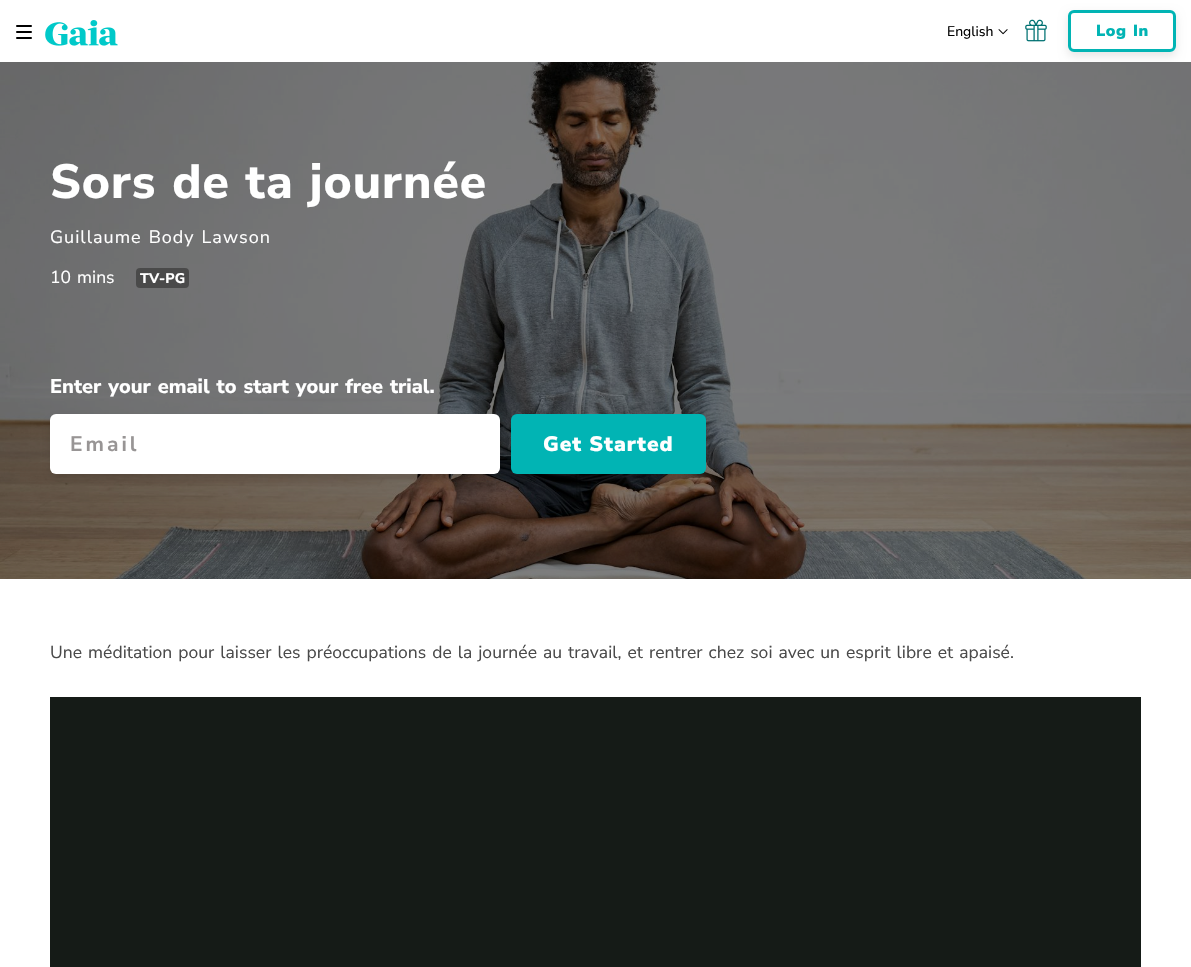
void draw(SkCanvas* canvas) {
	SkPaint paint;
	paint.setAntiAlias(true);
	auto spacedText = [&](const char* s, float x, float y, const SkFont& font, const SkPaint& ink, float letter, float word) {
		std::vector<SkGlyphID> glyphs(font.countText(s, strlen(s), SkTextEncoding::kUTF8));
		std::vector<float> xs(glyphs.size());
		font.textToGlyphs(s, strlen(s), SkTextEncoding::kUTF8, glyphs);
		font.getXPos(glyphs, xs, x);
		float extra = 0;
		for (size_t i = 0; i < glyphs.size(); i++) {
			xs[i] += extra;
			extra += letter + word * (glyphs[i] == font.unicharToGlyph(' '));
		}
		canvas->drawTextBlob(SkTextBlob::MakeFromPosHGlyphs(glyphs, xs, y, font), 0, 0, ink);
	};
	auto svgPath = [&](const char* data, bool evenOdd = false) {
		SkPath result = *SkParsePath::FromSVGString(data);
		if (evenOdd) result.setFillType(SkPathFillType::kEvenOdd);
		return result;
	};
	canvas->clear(0xffffffff);
	paint.setColor(0xff000000);
	canvas->drawRoundRect(SkRect::MakeXYWH(16, 25, 16, 2), 1, 1, paint);
	canvas->drawRoundRect(SkRect::MakeXYWH(16, 31, 16, 2), 1, 1, paint);
	canvas->drawRoundRect(SkRect::MakeXYWH(16, 37, 16, 2), 1, 1, paint);
	canvas->drawImageRect(SkImages::DeferredFromEncodedData(SkData::MakeFromFileName("img1.png")), SkRect::MakeXYWH(45, 20, 73, 26), SkSamplingOptions());
	SkFont f1(fontMgr->matchFamilyStyle("Nunito Sans", SkFontStyle::Normal()), 14);
	f1.setSubpixel(true);
	canvas->drawString("English", 947, 36, f1, paint);
	canvas->drawImageRect(SkImages::DeferredFromEncodedData(SkData::MakeFromFileName("img2.png")), SkRect::MakeXYWH(998, 29, 10, 6), SkSamplingOptions());
	canvas->drawImageRect(SkImages::DeferredFromEncodedData(SkData::MakeFromFileName("img3.png")), SkRect::MakeXYWH(1025, 19, 22, 23), SkSamplingOptions());
	canvas->drawImageRect(SkImages::DeferredFromEncodedData(SkData::MakeFromFileName("img4.png")), SkRect::MakeXYWH(0, 62, 1191, 517), SkSamplingOptions());
	canvas->save();
	canvas->clipPath(svgPath("M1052 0H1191V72H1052ZM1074 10H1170C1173.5 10 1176 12.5 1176 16V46C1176 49.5 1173.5 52 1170 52H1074C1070.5 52 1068 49.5 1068 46V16C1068 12.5 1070.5 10 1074 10Z", true), true);
	paint.setColor(0x1a000000);
	paint.setMaskFilter(SkMaskFilter::MakeBlur(kNormal_SkBlurStyle, 5));
	canvas->drawRoundRect(SkRect::MakeXYWH(1068, 14, 108, 42), 6, 6, paint);
	paint.setMaskFilter(nullptr);
	canvas->restore();
	paint.setStroke(true);
	paint.setStrokeWidth(3);
	paint.setColor(0xff01b4b4);
	canvas->drawRoundRect(SkRect::MakeXYWH(1069.5, 11.5, 105, 39), 4.5, 4.5, paint);
	SkFont f2(fontMgr->matchFamilyStyle("Nunito Sans", SkFontStyle(900, SkFontStyle::kNormal_Width, SkFontStyle::kUpright_Slant)), 16);
	f2.setSubpixel(true);
	paint.setStroke(false);
	spacedText("Log In", 1096, 36, f2, paint, 0.5, 1.4);
	SkFont f3(fontMgr->matchFamilyStyle("Nunito Sans", SkFontStyle(800, SkFontStyle::kNormal_Width, SkFontStyle::kUpright_Slant)), 48);
	f3.setSubpixel(true);
	paint.setColor(0xffffffff);
	spacedText("Sors de ta journée", 50, 198, f3, paint, 1, 1.4);
	SkFont f4(fontMgr->matchFamilyStyle("Nunito Sans", SkFontStyle::Normal()), 18);
	f4.setSubpixel(true);
	spacedText("Guillaume Body Lawson", 50, 243, f4, paint, 1, 1.4);
	SkFont f5(fontMgr->matchFamilyStyle("Nunito Sans", SkFontStyle::Normal()), 17.5);
	f5.setSubpixel(true);
	spacedText("10 mins", 50, 283, f5, paint, 0.04, 1.4);
	paint.setColor(0xff4a4a4a);
	canvas->drawRoundRect(SkRect::MakeXYWH(136, 268, 53, 20), 4, 4, paint);
	SkFont f6(fontMgr->matchFamilyStyle("Nunito Sans", SkFontStyle(800, SkFontStyle::kNormal_Width, SkFontStyle::kUpright_Slant)), 14);
	f6.setSubpixel(true);
	paint.setColor(0xffffffff);
	spacedText("TV-PG", 140, 283, f6, paint, 0.04, 0);
	SkFont f7(fontMgr->matchFamilyStyle("Nunito Sans", SkFontStyle(800, SkFontStyle::kNormal_Width, SkFontStyle::kUpright_Slant)), 20);
	f7.setSubpixel(true);
	spacedText("Enter your email to start your free trial.", 50, 393, f7, paint, 0, 1.4);
	paint.setColor(0x1a000000);
	paint.setMaskFilter(SkMaskFilter::MakeBlur(kNormal_SkBlurStyle, 5));
	canvas->drawRoundRect(SkRect::MakeXYWH(50, 418, 450, 60), 6, 6, paint);
	paint.setMaskFilter(nullptr);
	paint.setColor(0xffffffff);
	canvas->drawRoundRect(SkRect::MakeXYWH(50, 414, 450, 60), 6, 6, paint);
	SkFont f8(fontMgr->matchFamilyStyle("Nunito Sans", SkFontStyle::Bold()), 21);
	f8.setSubpixel(true);
	paint.setColor(0xff989595);
	spacedText("Email", 70, 451, f8, paint, 3, 0);
	paint.setColor(0xff01b4b4);
	canvas->drawRoundRect(SkRect::MakeXYWH(511, 414, 195, 60), 6, 6, paint);
	SkFont f9(fontMgr->matchFamilyStyle("Nunito Sans", SkFontStyle(900, SkFontStyle::kNormal_Width, SkFontStyle::kUpright_Slant)), 21);
	f9.setSubpixel(true);
	paint.setColor(0xffffffff);
	spacedText("Get Started", 543, 451, f9, paint, 1, 0);
	paint.setColor(0xff4a4a4a);
	spacedText("Une méditation pour laisser les préoccupations de la journée au travail, et rentrer chez soi avec un esprit libre et apaisé.", 50, 658, f5, paint, 0.04, 1.4);
	paint.setColor(0xff151b17);
	canvas->drawRect(SkRect::MakeXYWH(50, 697, 1091, 270), paint);
}
